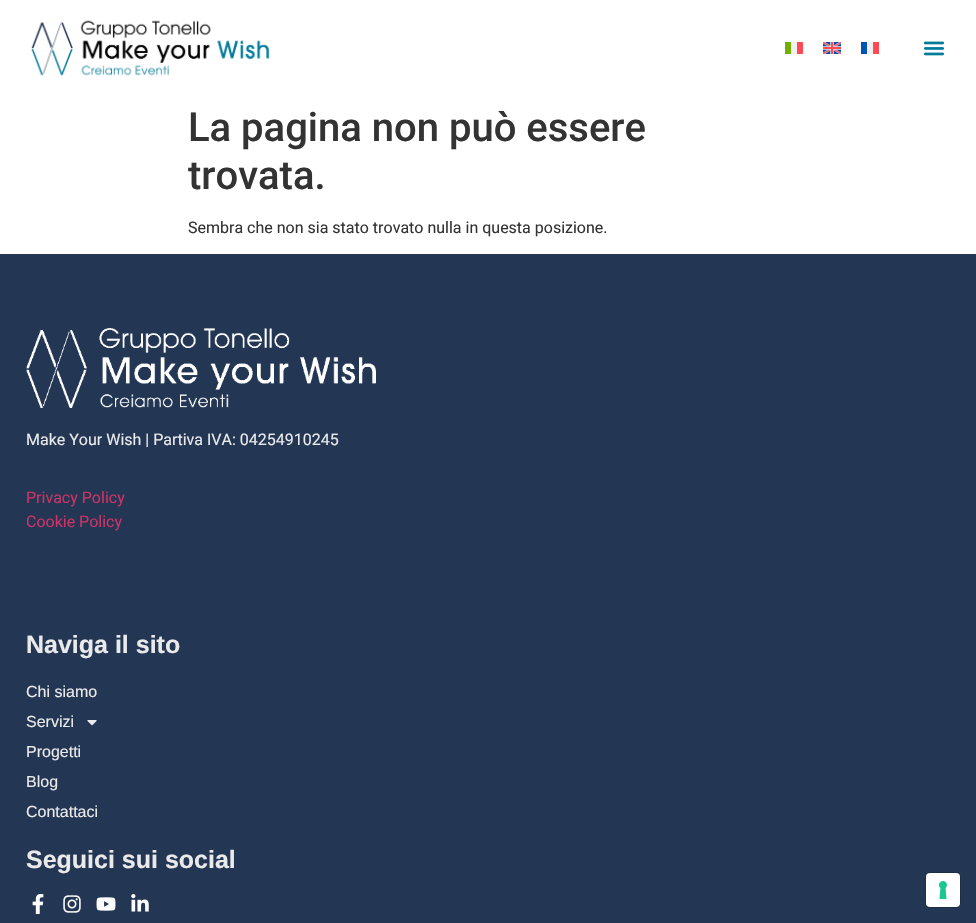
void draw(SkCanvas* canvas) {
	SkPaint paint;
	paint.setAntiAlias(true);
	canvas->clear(0xffffffff);
	canvas->drawImageRect(SkImages::DeferredFromEncodedData(SkData::MakeFromFileName("img1.png")), SkRect::MakeXYWH(31, 20, 239, 56), SkSamplingOptions());
	paint.setColor(0xff73af00);
	canvas->drawRect(SkRect::MakeXYWH(785, 42, 6, 12), paint);
	paint.setColor(0xfff0f0f0);
	canvas->drawRect(SkRect::MakeXYWH(791, 42, 6, 12), paint);
	paint.setColor(0xffff4b55);
	canvas->drawRect(SkRect::MakeXYWH(797, 42, 6, 12), paint);
	canvas->drawImageRect(SkImages::DeferredFromEncodedData(SkData::MakeFromFileName("img2.png")), SkRect::MakeXYWH(823, 42, 18, 12), SkSamplingOptions());
	paint.setColor(0xff0052b4);
	canvas->drawRect(SkRect::MakeXYWH(861, 42, 6, 12), paint);
	paint.setColor(0xfff0f0f0);
	canvas->drawRect(SkRect::MakeXYWH(867, 42, 6, 12), paint);
	paint.setColor(0xffff4b55);
	canvas->drawRect(SkRect::MakeXYWH(873, 42, 6, 12), paint);
	canvas->drawImageRect(SkImages::DeferredFromEncodedData(SkData::MakeFromFileName("img3.png")), SkRect::MakeXYWH(923, 41, 22, 15), SkSamplingOptions());
	SkFont f1(fontMgr->matchFamilyStyle("Roboto", SkFontStyle(500, SkFontStyle::kNormal_Width, SkFontStyle::kUpright_Slant)), 40);
	f1.setSubpixel(true);
	paint.setColor(0xff333333);
	canvas->drawString("La pagina non può essere", 188, 141, f1, paint);
	canvas->drawString("trovata.", 188, 189, f1, paint);
	SkFont f2(fontMgr->matchFamilyStyle("Roboto", SkFontStyle::Normal()), 16);
	f2.setSubpixel(true);
	canvas->drawString("Sembra che non sia stato trovato nulla in questa posizione.", 188, 233, f2, paint);
	paint.setColor(0xff233654);
	canvas->drawRect(SkRect::MakeXYWH(0, 254, 976, 669), paint);
	canvas->drawImageRect(SkImages::DeferredFromEncodedData(SkData::MakeFromFileName("img4.png")), SkRect::MakeXYWH(26, 328, 350, 80), SkSamplingOptions());
	paint.setColor(0xffeaeaea);
	canvas->drawString("Make Your Wish | Partiva IVA: 04254910245", 26, 445, f2, paint);
	paint.setColor(0xffcc3366);
	canvas->drawString("Privacy Policy", 26, 503, f2, paint);
	canvas->drawString("Cookie Policy", 26, 527, f2, paint);
	SkFont f3(fontMgr->matchFamilyStyle("Liberation Sans", SkFontStyle::Bold()), 25);
	f3.setSubpixel(true);
	paint.setColor(0xffeaeaea);
	canvas->drawString("Naviga il sito", 26, 653, f3, paint);
	SkFont f4(fontMgr->matchFamilyStyle("Liberation Sans", SkFontStyle::Normal()), 16);
	f4.setSubpixel(true);
	canvas->drawString("Chi siamo", 26, 697, f4, paint);
	canvas->drawString("Servizi", 26, 727, f4, paint);
	canvas->drawImageRect(SkImages::DeferredFromEncodedData(SkData::MakeFromFileName("img5.png")), SkRect::MakeXYWH(87, 720, 10, 6), SkSamplingOptions());
	canvas->drawString("Progetti", 26, 757, f4, paint);
	canvas->drawString("Blog", 26, 787, f4, paint);
	canvas->drawString("Contattaci", 26, 817, f4, paint);
	canvas->drawString("Seguici sui social", 26, 868, f3, paint);
	canvas->drawImageRect(SkImages::DeferredFromEncodedData(SkData::MakeFromFileName("img6.png")), SkRect::MakeXYWH(32, 894, 12, 20), SkSamplingOptions());
	canvas->drawImageRect(SkImages::DeferredFromEncodedData(SkData::MakeFromFileName("img7.png")), SkRect::MakeXYWH(63, 895, 18, 18), SkSamplingOptions());
	canvas->drawImageRect(SkImages::DeferredFromEncodedData(SkData::MakeFromFileName("img8.png")), SkRect::MakeXYWH(96, 897, 20, 14), SkSamplingOptions());
	canvas->drawImageRect(SkImages::DeferredFromEncodedData(SkData::MakeFromFileName("img9.png")), SkRect::MakeXYWH(131, 894, 18, 18), SkSamplingOptions());
	paint.setStroke(true);
	paint.setStrokeWidth(1);
	paint.setColor(0xff1e2e47);
	canvas->drawRoundRect(SkRect::MakeXYWH(925.5, 872.5, 35, 35), 4.5, 4.5, paint);
	paint.setStroke(false);
	paint.setColor(0xffffffff);
	canvas->drawRoundRect(SkRect::MakeXYWH(926, 873, 34, 34), 4, 4, paint);
	canvas->drawImageRect(SkImages::DeferredFromEncodedData(SkData::MakeFromFileName("img10.png")), SkRect::MakeXYWH(939, 881, 8, 18), SkSamplingOptions());
}
